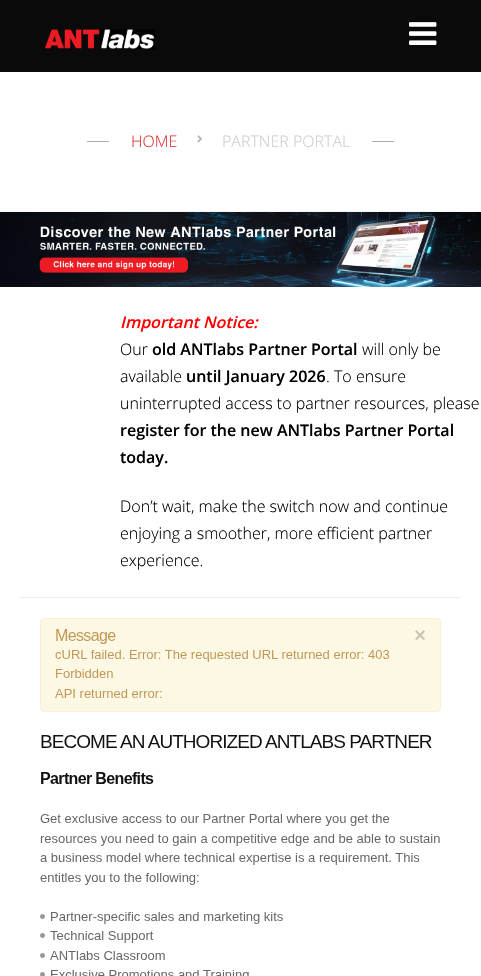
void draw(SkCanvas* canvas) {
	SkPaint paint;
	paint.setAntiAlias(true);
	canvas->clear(0xffffffff);
	paint.setColor(0xff0a0a0a);
	canvas->drawRect(SkRect::MakeXYWH(0, 0, 481, 72), paint);
	canvas->drawImageRect(SkImages::DeferredFromEncodedData(SkData::MakeFromFileName("img1.png")), SkRect::MakeXYWH(45, 29, 110, 20), SkSamplingOptions());
	canvas->drawImageRect(SkImages::DeferredFromEncodedData(SkData::MakeFromFileName("img2.png")), SkRect::MakeXYWH(409, 22, 28, 23), SkSamplingOptions());
	paint.setColor(0xfff6f6f6);
	canvas->drawRect(SkRect::MakeXYWH(0, 211, 481, 1), paint);
	paint.setColor(0xffadadad);
	canvas->drawRect(SkRect::MakeXYWH(87, 141, 22, 1), paint);
	SkFont f1(fontMgr->matchFamilyStyle("Open Sans", SkFontStyle(300, SkFontStyle::kNormal_Width, SkFontStyle::kUpright_Slant)), 16);
	f1.setSubpixel(true);
	paint.setColor(0xffdd3333);
	canvas->drawString("HOME", 131, 147, f1, paint);
	canvas->drawImageRect(SkImages::DeferredFromEncodedData(SkData::MakeFromFileName("img3.png")), SkRect::MakeXYWH(197, 135, 5, 8), SkSamplingOptions());
	paint.setColor(0xffcecece);
	canvas->drawString("PARTNER PORTAL", 222, 147, f1, paint);
	paint.setColor(0xffadadad);
	canvas->drawRect(SkRect::MakeXYWH(372, 141, 22, 1), paint);
	canvas->drawImageRect(SkImages::DeferredFromEncodedData(SkData::MakeFromFileName("img4.png")), SkRect::MakeXYWH(0, 212, 481, 75), SkSamplingOptions());
	SkFont f2(fontMgr->matchFamilyStyle("Open Sans", SkFontStyle(600, SkFontStyle::kNormal_Width, SkFontStyle::kItalic_Slant)), 16);
	f2.setSubpixel(true);
	paint.setColor(0xffff0000);
	canvas->drawString("Important Notice:", 120, 328, f2, paint);
	paint.setColor(0xff000000);
	canvas->drawString("Our", 120, 355, f1, paint);
	SkFont f3(fontMgr->matchFamilyStyle("Open Sans", SkFontStyle(600, SkFontStyle::kNormal_Width, SkFontStyle::kUpright_Slant)), 16);
	f3.setSubpixel(true);
	canvas->drawString("old ANTlabs Partner Portal", 152, 355, f3, paint);
	canvas->drawString("will only be", 362, 355, f1, paint);
	canvas->drawString("available", 120, 382, f1, paint);
	canvas->drawString("until January 2026", 186, 382, f3, paint);
	canvas->drawString(". To ensure", 326, 382, f1, paint);
	canvas->drawString("uninterrupted access to partner resources, please", 120, 409, f1, paint);
	canvas->drawString("register for the new ANTlabs Partner Portal", 120, 436, f3, paint);
	canvas->drawString("today.", 120, 463, f3, paint);
	canvas->drawString("Don’t wait, make the switch now and continue", 120, 512, f1, paint);
	canvas->drawString("enjoying a smoother, more efficient partner", 120, 539, f1, paint);
	canvas->drawString("experience.", 120, 566, f1, paint);
	canvas->drawImageRect(SkImages::DeferredFromEncodedData(SkData::MakeFromFileName("img5.png")), SkRect::MakeXYWH(20, 597, 441, 379), SkSamplingOptions());
}
